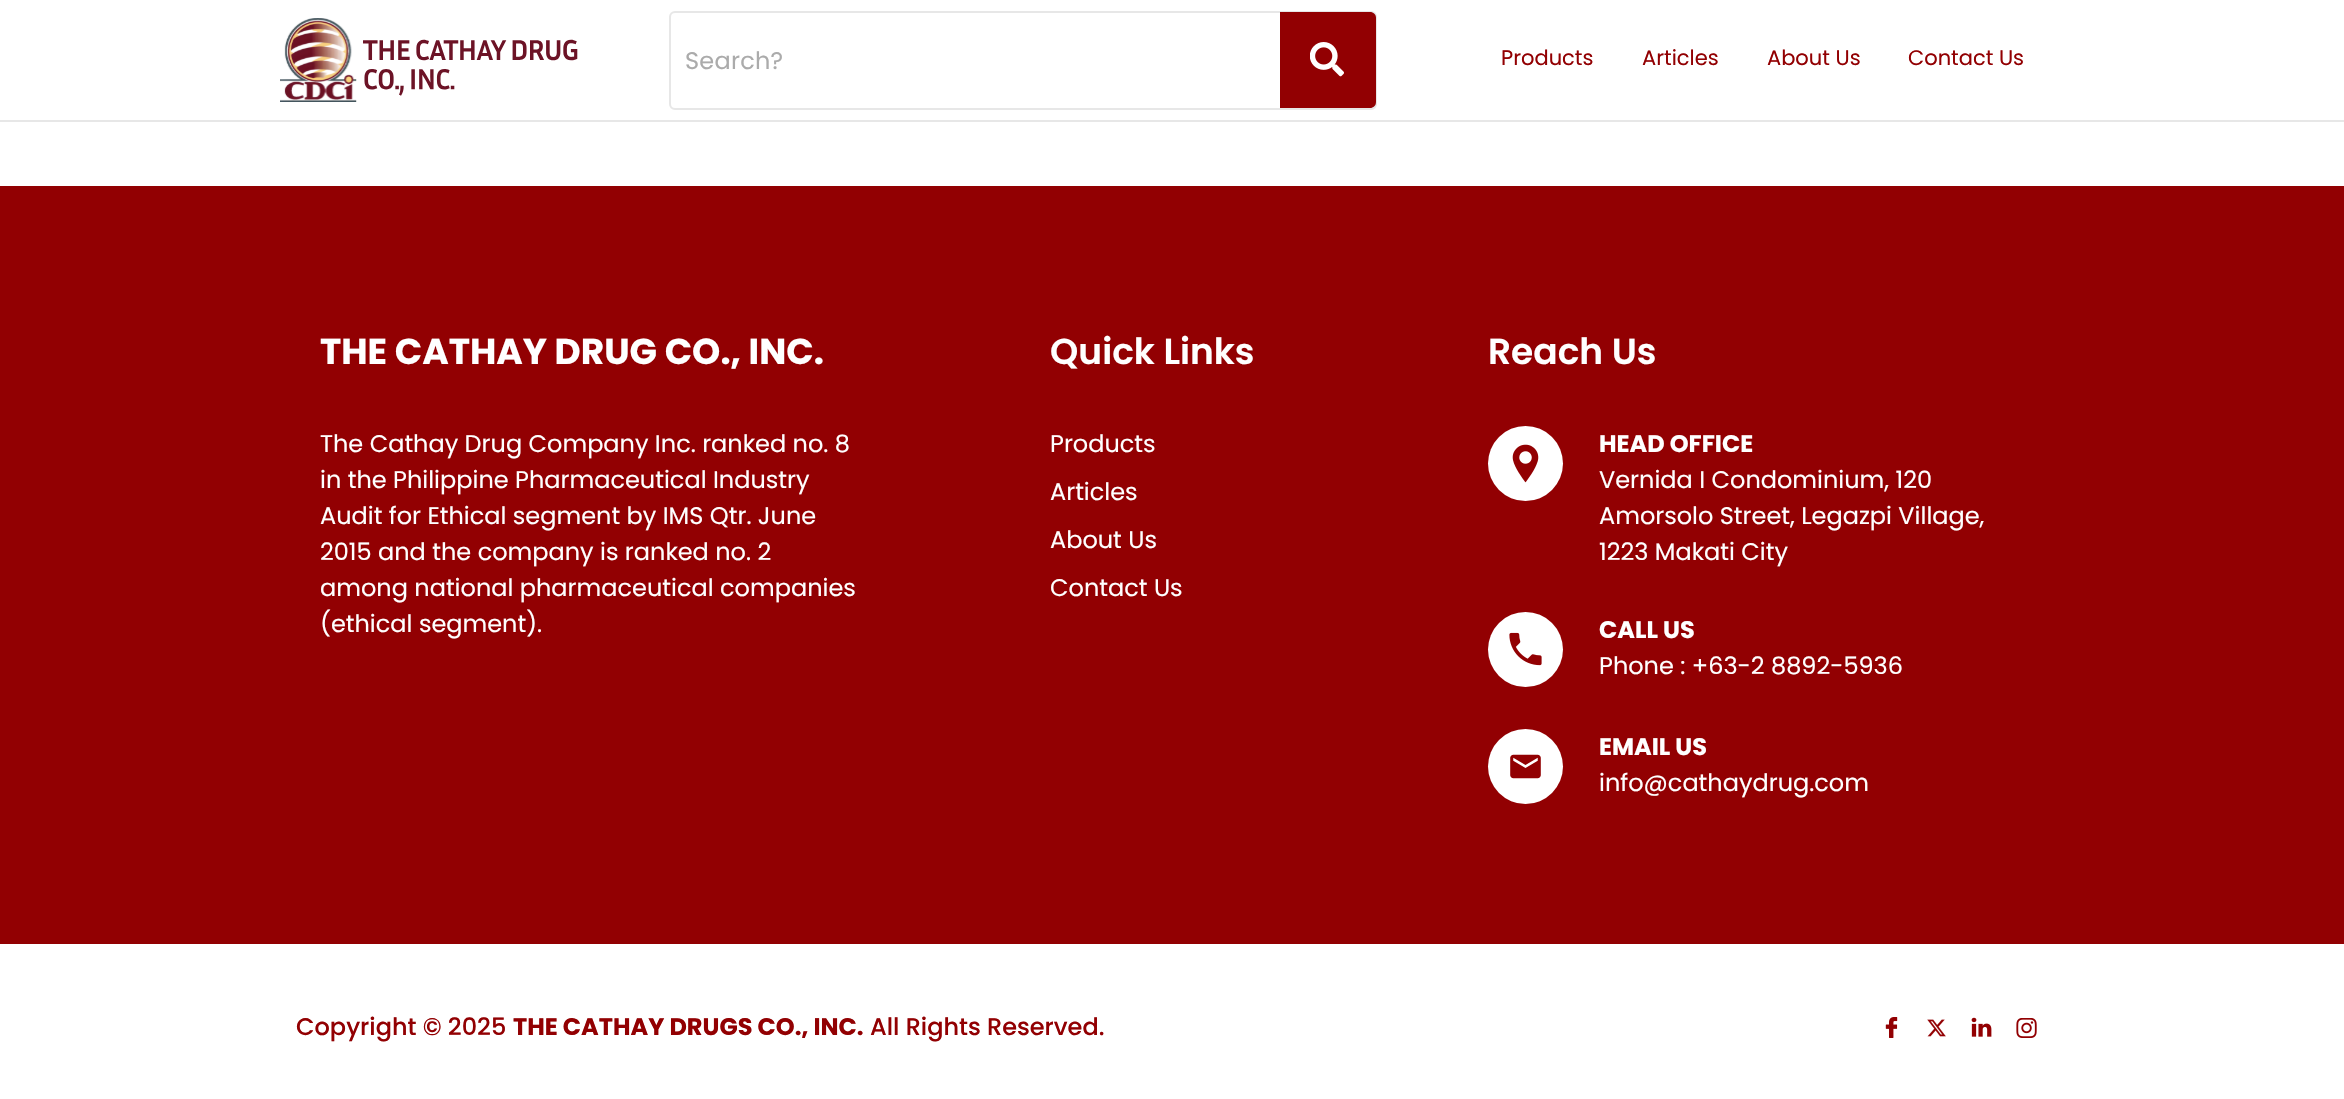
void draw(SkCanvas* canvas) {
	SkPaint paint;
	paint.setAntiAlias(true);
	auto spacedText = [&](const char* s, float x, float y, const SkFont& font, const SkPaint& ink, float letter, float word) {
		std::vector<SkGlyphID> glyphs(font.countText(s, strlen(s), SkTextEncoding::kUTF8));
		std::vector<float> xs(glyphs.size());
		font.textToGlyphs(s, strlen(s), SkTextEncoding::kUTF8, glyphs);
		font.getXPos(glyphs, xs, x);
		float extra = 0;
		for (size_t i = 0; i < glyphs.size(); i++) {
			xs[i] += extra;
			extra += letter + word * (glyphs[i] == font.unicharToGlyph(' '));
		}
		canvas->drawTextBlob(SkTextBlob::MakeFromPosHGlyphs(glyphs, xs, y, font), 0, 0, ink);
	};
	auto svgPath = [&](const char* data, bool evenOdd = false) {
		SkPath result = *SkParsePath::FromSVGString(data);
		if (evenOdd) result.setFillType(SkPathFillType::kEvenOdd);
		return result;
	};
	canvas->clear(0xffffffff);
	paint.setColor(0xffe7e7e7);
	canvas->drawRect(SkRect::MakeXYWH(0, 120, 2344, 2), paint);
	canvas->drawImageRect(SkImages::DeferredFromEncodedData(SkData::MakeFromFileName("img1.png")), SkRect::MakeXYWH(280, 18, 298, 84), SkSamplingOptions());
	paint.setStroke(true);
	paint.setStrokeWidth(2);
	canvas->drawRoundRect(SkRect::MakeXYWH(670, 12, 706, 97), 5, 5, paint);
	SkFont f1(fontMgr->matchFamilyStyle("Poppins", SkFontStyle::Normal()), 24);
	f1.setSubpixel(true);
	paint.setStroke(false);
	paint.setColor(0xffababab);
	spacedText("Search?", 685, 69, f1, paint, 0.25, 0);
	paint.setColor(0xff920002);
	canvas->drawPath(svgPath("M1280 12H1370C1373.5 12 1376 14.5 1376 18V102C1376 105.5 1373.5 108 1370 108H1280Z"), paint);
	canvas->drawImageRect(SkImages::DeferredFromEncodedData(SkData::MakeFromFileName("img2.png")), SkRect::MakeXYWH(1310, 42, 34, 35), SkSamplingOptions());
	SkFont f2(fontMgr->matchFamilyStyle("Poppins", SkFontStyle::Normal()), 21);
	f2.setSubpixel(true);
	canvas->drawString("Products", 1501, 65, f2, paint);
	canvas->drawString("Articles", 1642, 65, f2, paint);
	canvas->drawString("About Us", 1767, 65, f2, paint);
	canvas->drawString("Contact Us", 1908, 65, f2, paint);
	canvas->drawRect(SkRect::MakeXYWH(0, 186, 2344, 758), paint);
	SkFont f3(fontMgr->matchFamilyStyle("Poppins", SkFontStyle::Bold()), 36);
	f3.setSubpixel(true);
	paint.setColor(0xffffffff);
	canvas->drawString("THE CATHAY DRUG CO., INC.", 320, 364, f3, paint);
	canvas->drawString("The Cathay Drug Company Inc. ranked no. 8", 320, 452, f1, paint);
	canvas->drawString("in the Philippine Pharmaceutical Industry", 320, 488, f1, paint);
	canvas->drawString("Audit for Ethical segment by IMS Qtr. June", 320, 524, f1, paint);
	canvas->drawString("2015 and the company is ranked no. 2", 320, 560, f1, paint);
	canvas->drawString("among national pharmaceutical companies", 320, 596, f1, paint);
	canvas->drawString("(ethical segment).", 320, 632, f1, paint);
	SkFont f4(fontMgr->matchFamilyStyle("Poppins", SkFontStyle(600, SkFontStyle::kNormal_Width, SkFontStyle::kUpright_Slant)), 36);
	f4.setSubpixel(true);
	canvas->drawString("Quick Links", 1050, 364, f4, paint);
	canvas->drawString("Products", 1050, 452, f1, paint);
	canvas->drawString("Articles", 1050, 500, f1, paint);
	canvas->drawString("About Us", 1050, 548, f1, paint);
	canvas->drawString("Contact Us", 1050, 596, f1, paint);
	canvas->drawString("Reach Us", 1488, 364, f4, paint);
	canvas->drawCircle(1525.5, 463.5, 37.5, paint);
	canvas->drawImageRect(SkImages::DeferredFromEncodedData(SkData::MakeFromFileName("img3.png")), SkRect::MakeXYWH(1512, 444, 27, 39), SkSamplingOptions());
	SkFont f5(fontMgr->matchFamilyStyle("Poppins", SkFontStyle::Bold()), 24);
	f5.setSubpixel(true);
	canvas->drawString("HEAD OFFICE", 1599, 452, f5, paint);
	canvas->drawString("Vernida I Condominium, 120", 1599, 488, f1, paint);
	canvas->drawString("Amorsolo Street, Legazpi Village,", 1599, 524, f1, paint);
	canvas->drawString("1223 Makati City", 1599, 560, f1, paint);
	canvas->drawCircle(1525.5, 649.5, 37.5, paint);
	canvas->drawImageRect(SkImages::DeferredFromEncodedData(SkData::MakeFromFileName("img4.png")), SkRect::MakeXYWH(1509, 632, 33, 34), SkSamplingOptions());
	canvas->drawString("CALL US", 1599, 638, f5, paint);
	canvas->drawString("Phone : +63-2 8892-5936", 1599, 674, f1, paint);
	canvas->drawCircle(1525.5, 766.5, 37.5, paint);
	canvas->drawImageRect(SkImages::DeferredFromEncodedData(SkData::MakeFromFileName("img5.png")), SkRect::MakeXYWH(1510, 754, 31, 25), SkSamplingOptions());
	canvas->drawString("EMAIL US", 1599, 755, f5, paint);
	canvas->drawString("info@cathaydrug.com", 1599, 791, f1, paint);
	SkFont f6(fontMgr->matchFamilyStyle("Poppins", SkFontStyle(500, SkFontStyle::kNormal_Width, SkFontStyle::kUpright_Slant)), 24);
	f6.setSubpixel(true);
	paint.setColor(0xff920002);
	canvas->drawString("Copyright © 2025", 296, 1035, f6, paint);
	canvas->drawString("THE CATHAY DRUGS CO., INC.", 513, 1035, f5, paint);
	canvas->drawString("All Rights Reserved.", 870, 1035, f6, paint);
	canvas->drawImageRect(SkImages::DeferredFromEncodedData(SkData::MakeFromFileName("img6.png")), SkRect::MakeXYWH(1885, 1017, 13, 21), SkSamplingOptions());
	canvas->drawImageRect(SkImages::DeferredFromEncodedData(SkData::MakeFromFileName("img7.png")), SkRect::MakeXYWH(1927, 1019, 19, 18), SkSamplingOptions());
	canvas->drawImageRect(SkImages::DeferredFromEncodedData(SkData::MakeFromFileName("img8.png")), SkRect::MakeXYWH(1971, 1017, 21, 20), SkSamplingOptions());
	canvas->drawImageRect(SkImages::DeferredFromEncodedData(SkData::MakeFromFileName("img9.png")), SkRect::MakeXYWH(2016, 1018, 21, 20), SkSamplingOptions());
}
